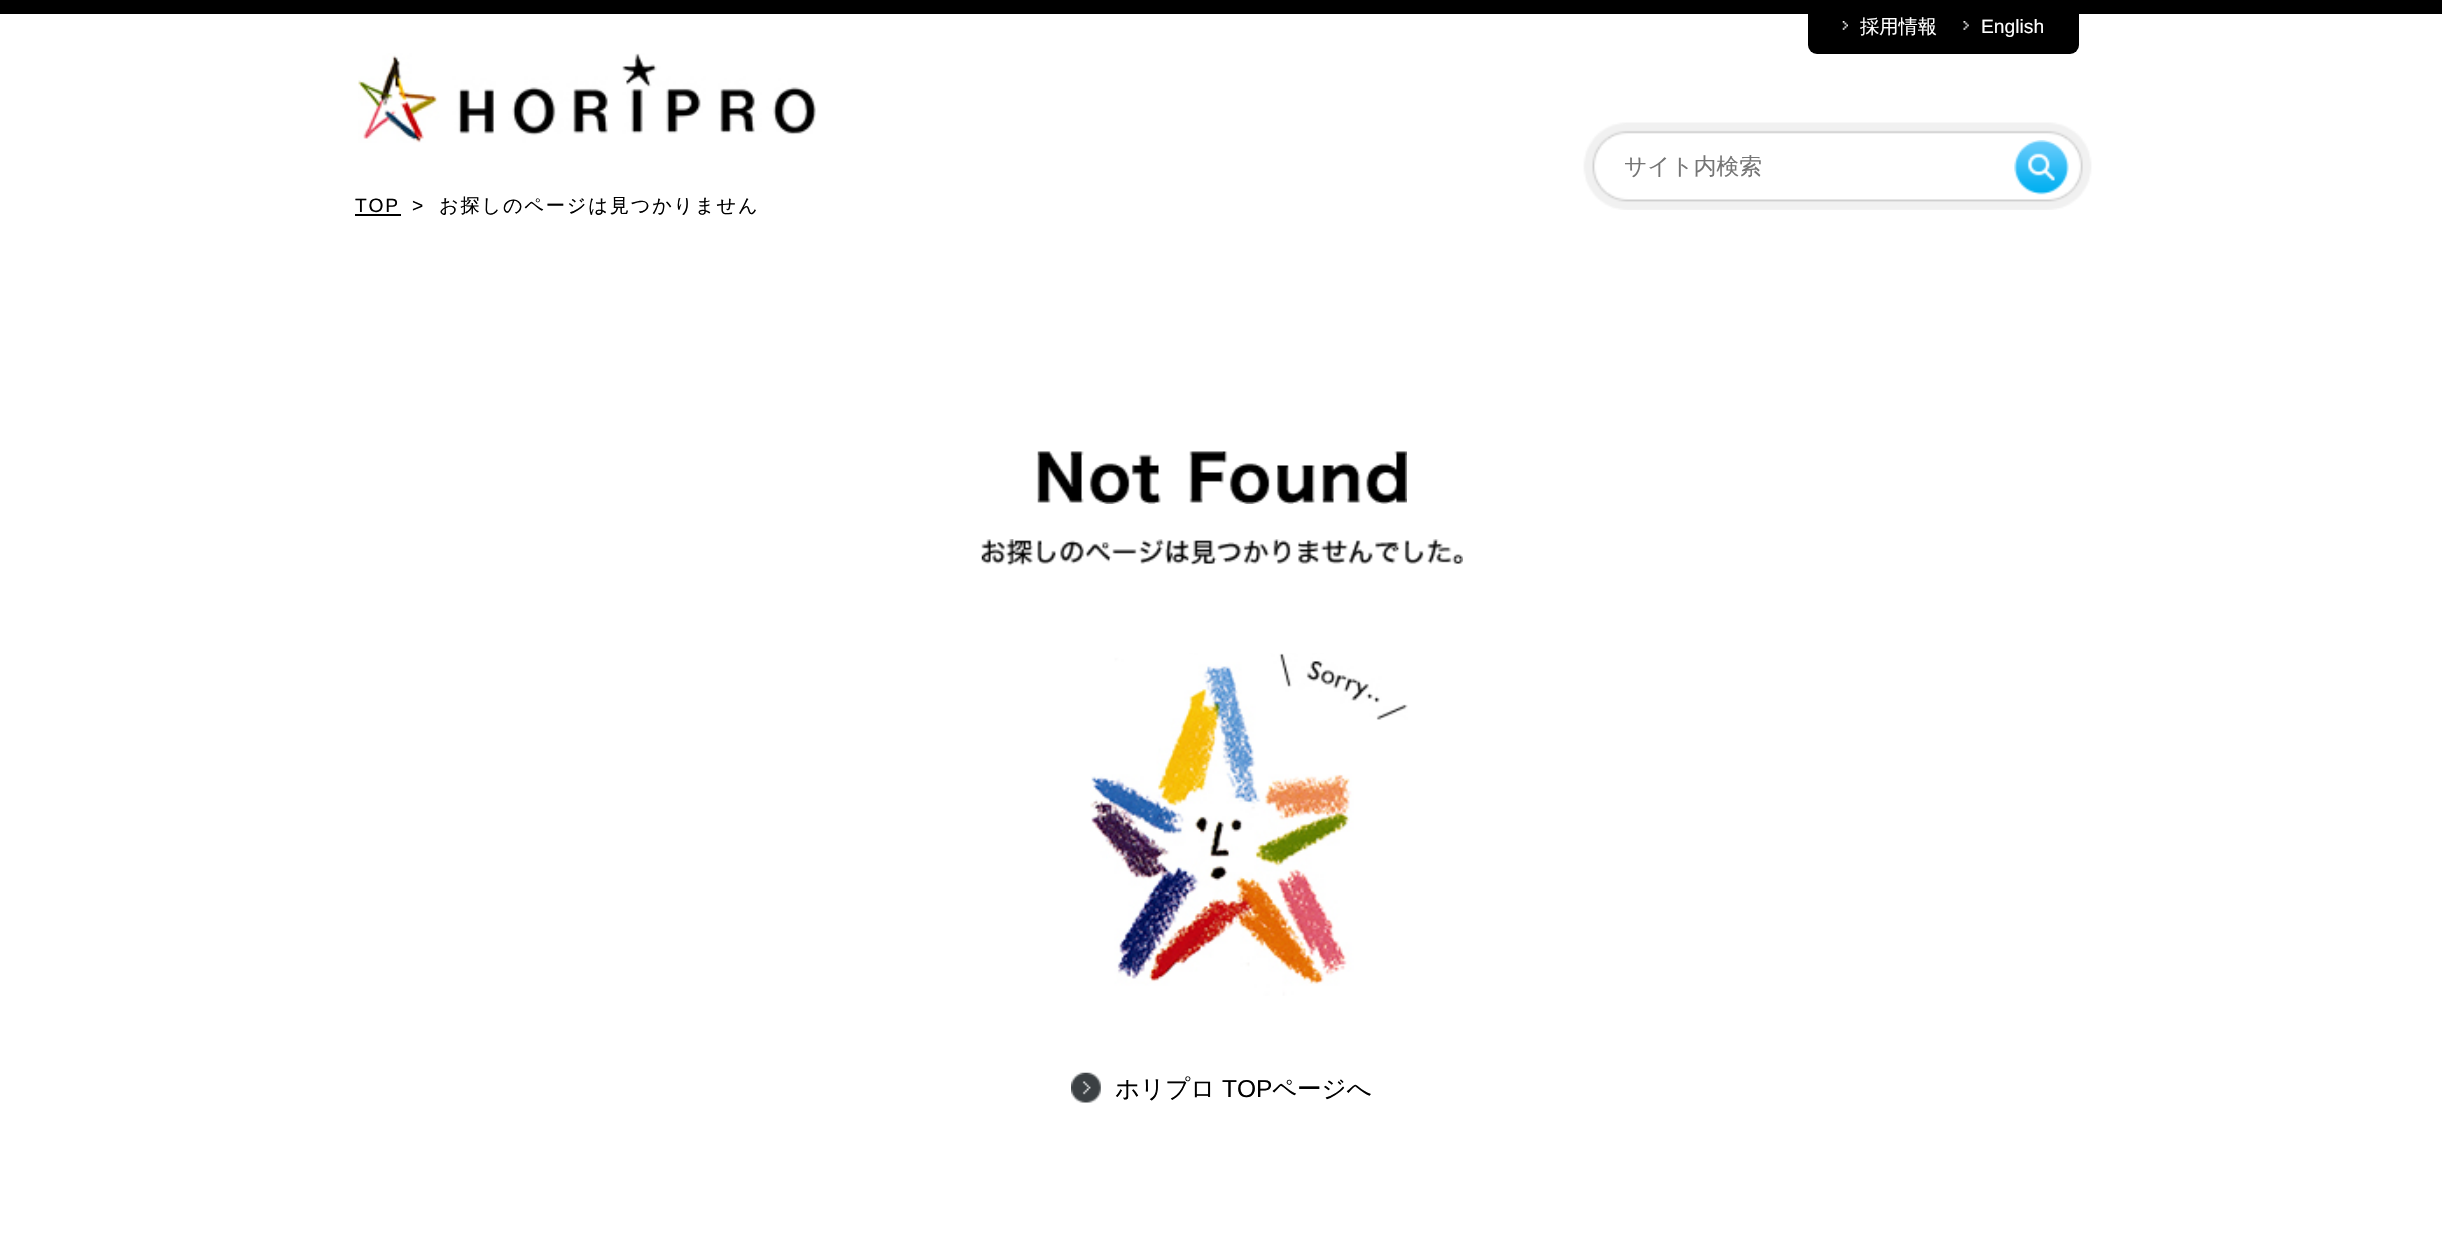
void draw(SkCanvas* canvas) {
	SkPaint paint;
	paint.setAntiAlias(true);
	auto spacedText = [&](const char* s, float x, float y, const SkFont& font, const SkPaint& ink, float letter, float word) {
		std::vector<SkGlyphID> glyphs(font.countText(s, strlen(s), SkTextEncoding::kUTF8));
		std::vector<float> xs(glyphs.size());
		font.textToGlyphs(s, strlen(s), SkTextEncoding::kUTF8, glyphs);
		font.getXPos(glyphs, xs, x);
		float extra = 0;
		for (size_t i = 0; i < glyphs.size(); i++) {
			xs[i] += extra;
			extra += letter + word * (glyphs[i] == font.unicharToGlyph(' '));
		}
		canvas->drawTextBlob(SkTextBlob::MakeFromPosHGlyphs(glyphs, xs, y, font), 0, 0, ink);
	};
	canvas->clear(0xffffffff);
	paint.setColor(0xff000000);
	canvas->drawRect(SkRect::MakeXYWH(0, 0, 2442, 14), paint);
	canvas->drawRoundRect(SkRect::MakeXYWH(1808, 5, 271, 49), 9, 9, paint);
	canvas->drawImageRect(SkImages::DeferredFromEncodedData(SkData::MakeFromFileName("img1.png")), SkRect::MakeXYWH(1842, 21, 6, 9), SkSamplingOptions());
	SkFont f1(fontMgr->matchFamilyStyle("WenQuanYi Zen Hei", SkFontStyle(500, SkFontStyle::kNormal_Width, SkFontStyle::kUpright_Slant)), 19.25);
	f1.setSubpixel(true);
	paint.setColor(0xffffffff);
	canvas->drawString("採用情報", 1860, 33, f1, paint);
	canvas->drawImageRect(SkImages::DeferredFromEncodedData(SkData::MakeFromFileName("img2.png")), SkRect::MakeXYWH(1963, 21, 6, 9), SkSamplingOptions());
	SkFont f2(fontMgr->matchFamilyStyle("Liberation Sans", SkFontStyle::Normal()), 19.25);
	f2.setSubpixel(true);
	canvas->drawString("English", 1981, 33, f2, paint);
	canvas->drawImageRect(SkImages::DeferredFromEncodedData(SkData::MakeFromFileName("img3.png")), SkRect::MakeXYWH(1583, 122, 509, 88), SkSamplingOptions());
	SkFont f3(fontMgr->matchFamilyStyle("WenQuanYi Zen Hei", SkFontStyle(500, SkFontStyle::kNormal_Width, SkFontStyle::kUpright_Slant)), 22.75);
	f3.setSubpixel(true);
	paint.setColor(0xff757575);
	canvas->drawString("サイト内検索", 1624, 174, f3, paint);
	canvas->drawImageRect(SkImages::DeferredFromEncodedData(SkData::MakeFromFileName("img4.png")), SkRect::MakeXYWH(2014, 140, 55, 55), SkSamplingOptions());
	canvas->drawImageRect(SkImages::DeferredFromEncodedData(SkData::MakeFromFileName("img5.png")), SkRect::MakeXYWH(358, 53, 458, 90), SkSamplingOptions());
	paint.setColor(0xff000000);
	spacedText("TOP", 355, 212, f2, paint, 1.75, 0);
	canvas->drawRect(SkRect::MakeXYWH(355, 214, 46, 2), paint);
	spacedText(">", 412, 212, f2, paint, 1.75, 0);
	spacedText("お探しのページは見つかりません", 439, 212, f1, paint, 1.75, 0);
	canvas->drawImageRect(SkImages::DeferredFromEncodedData(SkData::MakeFromFileName("img6.png")), SkRect::MakeXYWH(1037, 451, 370, 53), SkSamplingOptions());
	canvas->drawImageRect(SkImages::DeferredFromEncodedData(SkData::MakeFromFileName("img7.png")), SkRect::MakeXYWH(981, 539, 482, 27), SkSamplingOptions());
	canvas->drawImageRect(SkImages::DeferredFromEncodedData(SkData::MakeFromFileName("img8.png")), SkRect::MakeXYWH(1090, 653, 318, 343), SkSamplingOptions());
	canvas->drawImageRect(SkImages::DeferredFromEncodedData(SkData::MakeFromFileName("img9.png")), SkRect::MakeXYWH(1071, 1072, 30, 31), SkSamplingOptions());
	SkFont f4(fontMgr->matchFamilyStyle("WenQuanYi Zen Hei", SkFontStyle(500, SkFontStyle::kNormal_Width, SkFontStyle::kUpright_Slant)), 24.5);
	f4.setSubpixel(true);
	canvas->drawString("ホリプロ", 1115, 1097, f4, paint);
	SkFont f5(fontMgr->matchFamilyStyle("Liberation Sans", SkFontStyle::Normal()), 24.5);
	f5.setSubpixel(true);
	canvas->drawString("TOP", 1222, 1097, f5, paint);
	canvas->drawString("ページへ", 1272, 1097, f4, paint);
}
